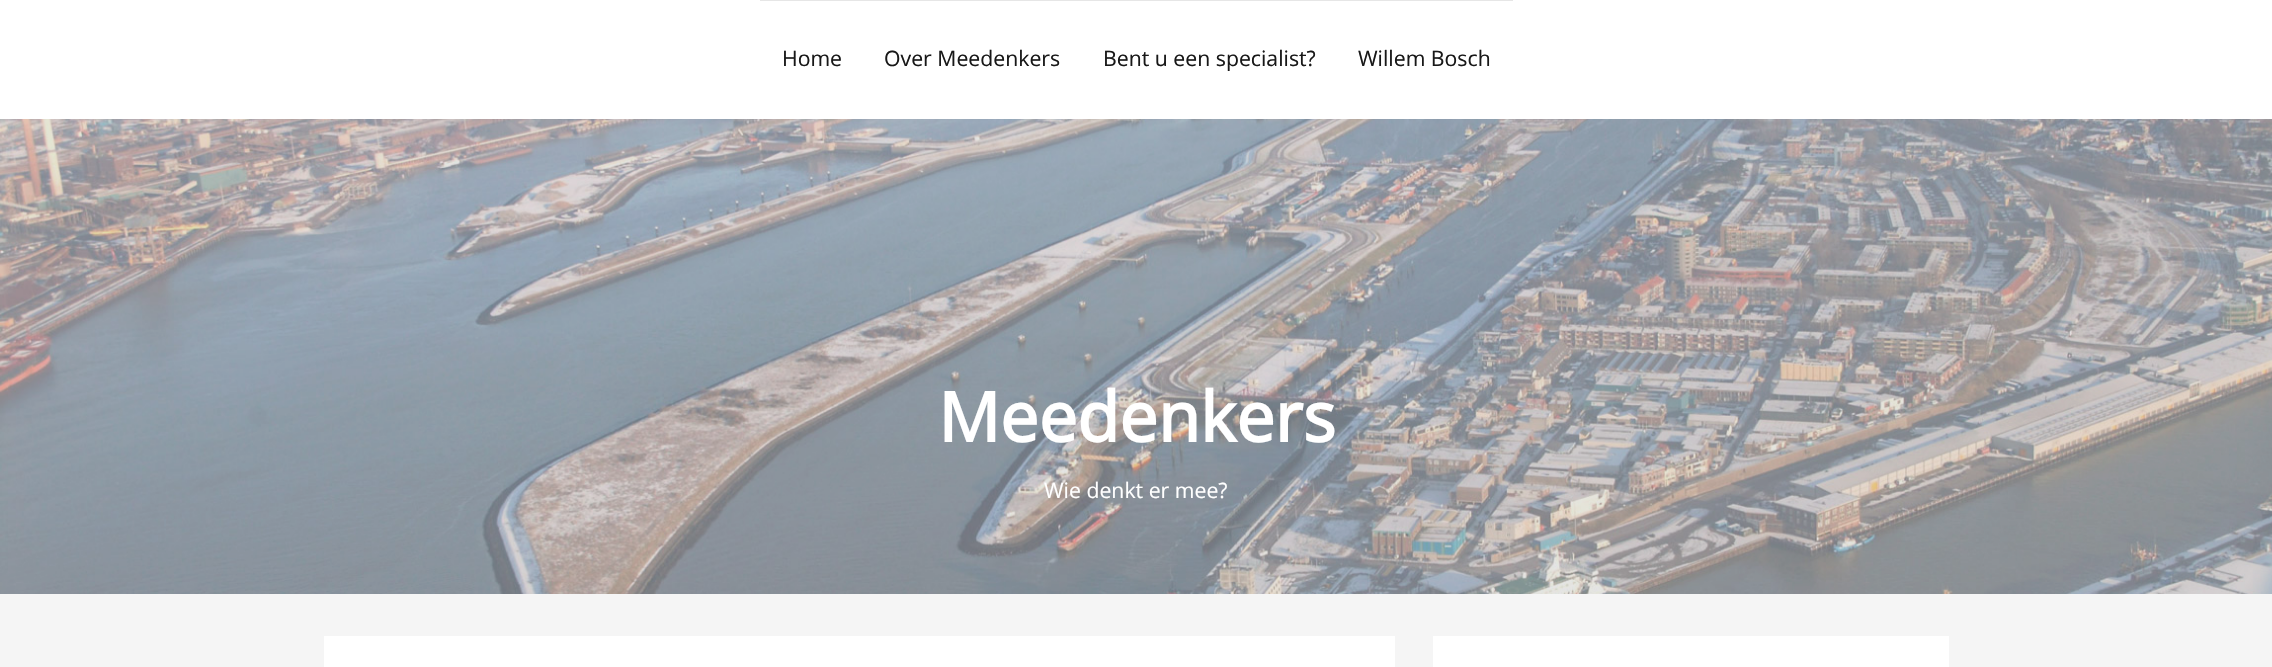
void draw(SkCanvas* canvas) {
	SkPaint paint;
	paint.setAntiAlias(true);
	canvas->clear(0xfff5f5f5);
	paint.setColor(0xffffffff);
	canvas->drawRect(SkRect::MakeXYWH(0, 0, 2272, 119), paint);
	paint.setColor(0xffe6e6e6);
	canvas->drawRect(SkRect::MakeXYWH(760, 0, 753, 1), paint);
	SkFont f1(fontMgr->matchFamilyStyle("Open Sans", SkFontStyle::Normal()), 21.25);
	f1.setSubpixel(true);
	paint.setColor(0xff181818);
	canvas->drawString("Home", 782, 66, f1, paint);
	canvas->drawString("Over Meedenkers", 884, 66, f1, paint);
	canvas->drawString("Bent u een specialist?", 1103, 66, f1, paint);
	canvas->drawString("Willem Bosch", 1358, 66, f1, paint);
	canvas->drawImageRect(SkImages::DeferredFromEncodedData(SkData::MakeFromFileName("img1.png")), SkRect::MakeXYWH(0, 119, 2272, 475), SkSamplingOptions());
	SkFont f2(fontMgr->matchFamilyStyle("Open Sans", SkFontStyle::Bold()), 68.75);
	f2.setSubpixel(true);
	paint.setColor(0xffffffff);
	canvas->drawString("Meedenkers", 938, 442, f2, paint);
	canvas->drawString("Wie denkt er mee?", 1044, 498, f1, paint);
	canvas->drawRect(SkRect::MakeXYWH(324, 636, 1071, 31), paint);
	canvas->drawRect(SkRect::MakeXYWH(1433, 636, 516, 31), paint);
}
